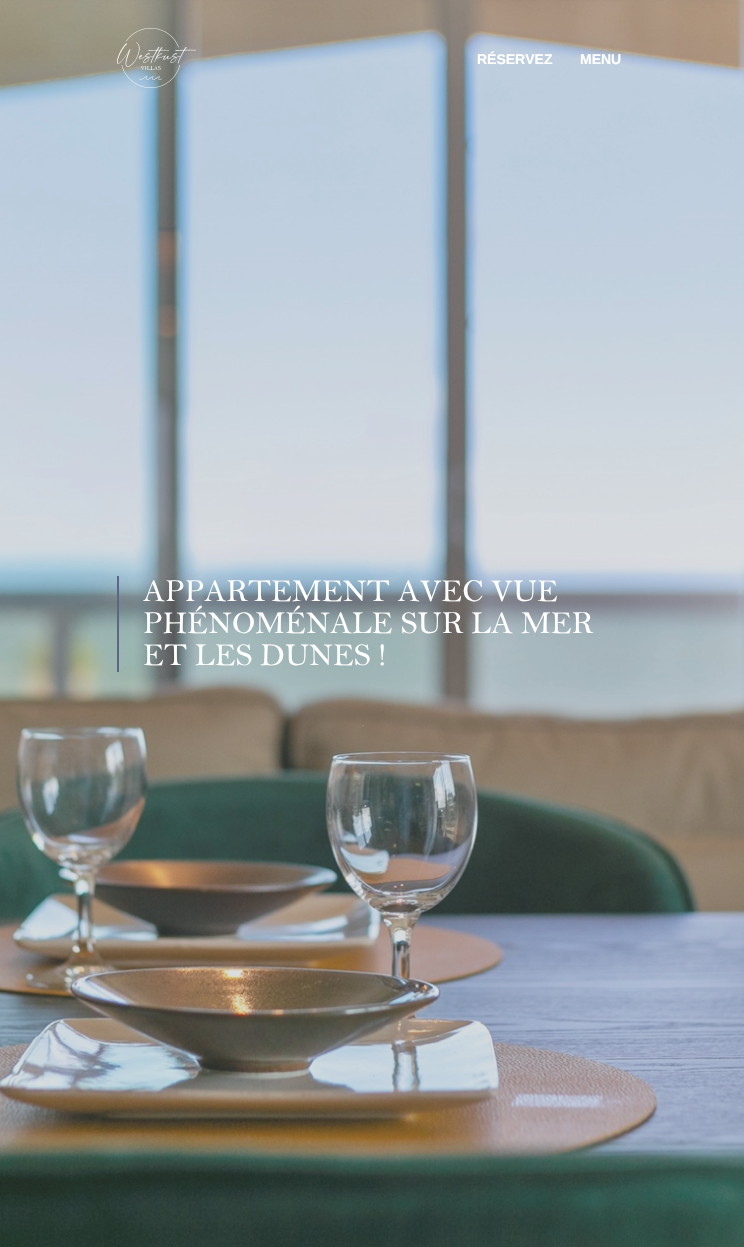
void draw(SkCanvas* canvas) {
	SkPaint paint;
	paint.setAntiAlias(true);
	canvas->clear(0xffffffff);
	canvas->drawImageRect(SkImages::DeferredFromEncodedData(SkData::MakeFromFileName("img2.png")), SkRect::MakeXYWH(0, 0, 744, 1247), SkSamplingOptions());
	canvas->drawImageRect(SkImages::DeferredFromEncodedData(SkData::MakeFromFileName("img1.png")), SkRect::MakeXYWH(117, 28, 79, 60), SkSamplingOptions());
	SkFont f1(fontMgr->matchFamilyStyle("Liberation Sans", SkFontStyle::Bold()), 14);
	f1.setSubpixel(true);
	paint.setColor(0xffffffff);
	canvas->drawString("RÉSERVEZ", 477, 64, f1, paint);
	canvas->drawString("MENU", 580, 64, f1, paint);
	paint.setColor(0xff5c6788);
	canvas->drawRect(SkRect::MakeXYWH(117, 576, 2, 96), paint);
	SkFont f2(fontMgr->matchFamilyStyle("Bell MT", SkFontStyle::Normal()), 32);
	f2.setSubpixel(true);
	paint.setColor(0xffffffff);
	canvas->drawString("APPARTEMENT AVEC VUE", 143, 601, f2, paint);
	canvas->drawString("PHÉNOMÉNALE SUR LA MER", 143, 633, f2, paint);
	canvas->drawString("ET LES DUNES !", 143, 665, f2, paint);
}
